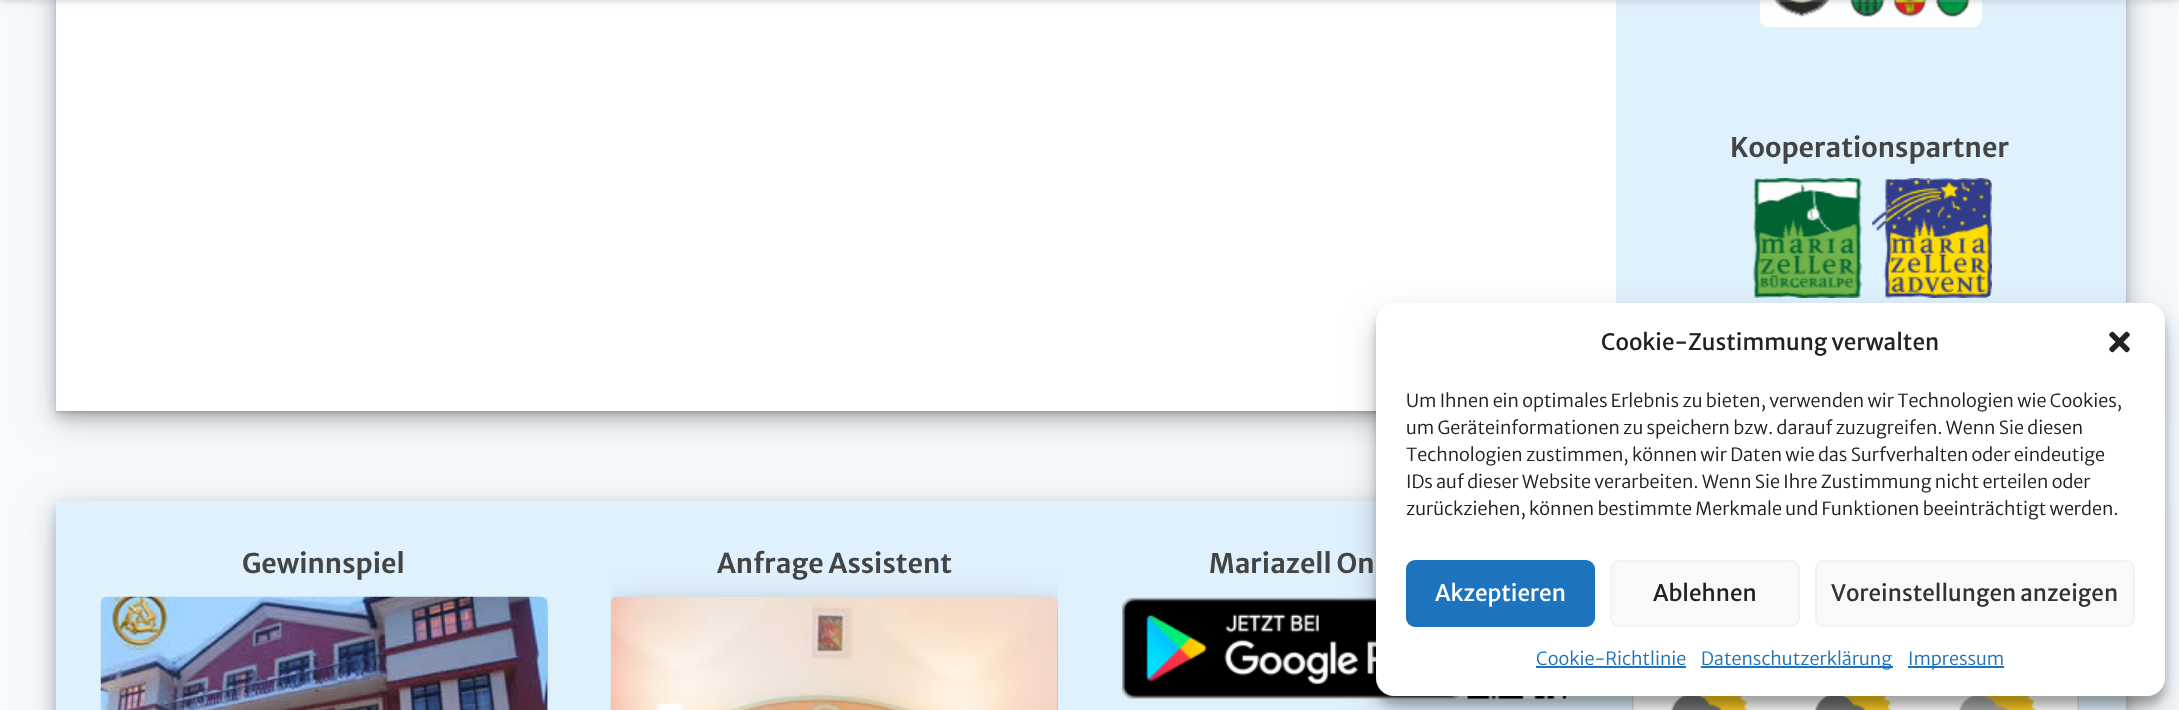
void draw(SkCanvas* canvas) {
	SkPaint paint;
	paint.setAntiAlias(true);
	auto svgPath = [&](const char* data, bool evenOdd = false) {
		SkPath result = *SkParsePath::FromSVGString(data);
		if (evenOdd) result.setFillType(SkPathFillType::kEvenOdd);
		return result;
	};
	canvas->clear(0xfff4fafe);
	paint.setColor(0x1a000000);
	paint.setMaskFilter(SkMaskFilter::MakeBlur(kNormal_SkBlurStyle, 1));
	canvas->drawRect(SkRect::MakeXYWH(56, -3, 2070, 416), paint);
	paint.setMaskFilter(nullptr);
	paint.setColor(0x30000000);
	paint.setMaskFilter(SkMaskFilter::MakeBlur(kNormal_SkBlurStyle, 15));
	canvas->drawRect(SkRect::MakeXYWH(56, -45, 2070, 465), paint);
	paint.setMaskFilter(nullptr);
	paint.setColor(0x33000000);
	paint.setMaskFilter(SkMaskFilter::MakeBlur(kNormal_SkBlurStyle, 6));
	canvas->drawRect(SkRect::MakeXYWH(56, -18, 2070, 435), paint);
	paint.setMaskFilter(nullptr);
	paint.setColor(0xffffffff);
	canvas->drawRect(SkRect::MakeXYWH(56, 0, 1560, 411), paint);
	paint.setColor(0xffdff1fd);
	canvas->drawRect(SkRect::MakeXYWH(1616, 0, 510, 303), paint);
	canvas->drawImageRect(SkImages::DeferredFromEncodedData(SkData::MakeFromFileName("img1.png")), SkRect::MakeXYWH(1760, 0, 222, 27), SkSamplingOptions());
	paint.setColor(0x26ffffff);
	canvas->drawPath(svgPath("M0 0V2H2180V-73V0Z"), paint);
	paint.setColor(0x33000000);
	paint.setMaskFilter(SkMaskFilter::MakeBlur(kNormal_SkBlurStyle, 4));
	canvas->drawRect(SkRect::MakeXYWH(0, -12, 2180, 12), paint);
	paint.setMaskFilter(nullptr);
	SkFont f1(fontMgr->matchFamilyStyle("Merriweather Sans", SkFontStyle(600, SkFontStyle::kNormal_Width, SkFontStyle::kUpright_Slant)), 27);
	f1.setSubpixel(true);
	paint.setColor(0xff444444);
	canvas->drawString("Kooperationspartner", 1730, 157, f1, paint);
	canvas->drawImageRect(SkImages::DeferredFromEncodedData(SkData::MakeFromFileName("img2.png")), SkRect::MakeXYWH(1752, 178, 111, 120), SkSamplingOptions());
	canvas->drawImageRect(SkImages::DeferredFromEncodedData(SkData::MakeFromFileName("img3.png")), SkRect::MakeXYWH(1872, 178, 120, 120), SkSamplingOptions());
	paint.setColor(0x30000000);
	paint.setMaskFilter(SkMaskFilter::MakeBlur(kNormal_SkBlurStyle, 15));
	canvas->drawRect(SkRect::MakeXYWH(56, 510, 2070, 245), paint);
	paint.setMaskFilter(nullptr);
	paint.setColor(0x33000000);
	paint.setMaskFilter(SkMaskFilter::MakeBlur(kNormal_SkBlurStyle, 6));
	canvas->drawRect(SkRect::MakeXYWH(56, 507, 2070, 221), paint);
	paint.setMaskFilter(nullptr);
	paint.setColor(0xffdff1fd);
	canvas->drawRect(SkRect::MakeXYWH(56, 501, 2070, 209), paint);
	paint.setColor(0xff444444);
	canvas->drawString("Gewinnspiel", 242, 573, f1, paint);
	canvas->save();
	canvas->clipRect(SkRect::MakeXYWH(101, 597, 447, 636));
	paint.setColor(0x30000000);
	paint.setMaskFilter(SkMaskFilter::MakeBlur(kNormal_SkBlurStyle, 15));
	canvas->drawRoundRect(SkRect::MakeXYWH(101, 606, 447, 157), 8, 8, paint);
	paint.setMaskFilter(nullptr);
	paint.setColor(0x33000000);
	paint.setMaskFilter(SkMaskFilter::MakeBlur(kNormal_SkBlurStyle, 6));
	canvas->drawRoundRect(SkRect::MakeXYWH(101, 603, 447, 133), 8, 8, paint);
	paint.setMaskFilter(nullptr);
	canvas->restore();
	canvas->drawImageRect(SkImages::DeferredFromEncodedData(SkData::MakeFromFileName("img4.png")), SkRect::MakeXYWH(100, 596, 448, 114), SkSamplingOptions());
	paint.setColor(0xff444444);
	canvas->drawString("Anfrage Assistent", 717, 573, f1, paint);
	canvas->save();
	canvas->clipRect(SkRect::MakeXYWH(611, 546, 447, 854));
	paint.setColor(0x30000000);
	paint.setMaskFilter(SkMaskFilter::MakeBlur(kNormal_SkBlurStyle, 15));
	canvas->drawRoundRect(SkRect::MakeXYWH(611, 606, 447, 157), 8, 8, paint);
	paint.setMaskFilter(nullptr);
	paint.setColor(0x33000000);
	paint.setMaskFilter(SkMaskFilter::MakeBlur(kNormal_SkBlurStyle, 6));
	canvas->drawRoundRect(SkRect::MakeXYWH(611, 603, 447, 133), 8, 8, paint);
	paint.setMaskFilter(nullptr);
	canvas->restore();
	canvas->drawImageRect(SkImages::DeferredFromEncodedData(SkData::MakeFromFileName("img5.png")), SkRect::MakeXYWH(610, 596, 448, 114), SkSamplingOptions());
	paint.setColor(0xff444444);
	canvas->drawString("Mariazell On", 1209, 573, f1, paint);
	canvas->drawImageRect(SkImages::DeferredFromEncodedData(SkData::MakeFromFileName("img6.png")), SkRect::MakeXYWH(1122, 597, 446, 103), SkSamplingOptions());
	canvas->drawImageRect(SkImages::DeferredFromEncodedData(SkData::MakeFromFileName("img7.png")), SkRect::MakeXYWH(1632, 696, 447, 14), SkSamplingOptions());
	paint.setColor(0x3b000000);
	paint.setMaskFilter(SkMaskFilter::MakeBlur(kNormal_SkBlurStyle, 4.5));
	canvas->drawRoundRect(SkRect::MakeXYWH(1376, 312, 789, 393), 18, 18, paint);
	paint.setMaskFilter(nullptr);
	paint.setColor(0x30000000);
	paint.setMaskFilter(SkMaskFilter::MakeBlur(kNormal_SkBlurStyle, 15));
	canvas->drawRoundRect(SkRect::MakeXYWH(1376, 318, 789, 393), 18, 18, paint);
	paint.setMaskFilter(nullptr);
	paint.setColor(0xffffffff);
	canvas->drawRoundRect(SkRect::MakeXYWH(1376, 303, 789, 393), 18, 18, paint);
	SkFont f2(fontMgr->matchFamilyStyle("Merriweather Sans", SkFontStyle::Normal()), 22.5);
	f2.setSubpixel(true);
	paint.setColor(0xff222222);
	canvas->drawString("Cookie-Zustimmung verwalten", 1601, 350, f2, paint);
	canvas->drawImageRect(SkImages::DeferredFromEncodedData(SkData::MakeFromFileName("img8.png")), SkRect::MakeXYWH(2109, 331, 21, 22), SkSamplingOptions());
	SkFont f3(fontMgr->matchFamilyStyle("Merriweather Sans", SkFontStyle(300, SkFontStyle::kNormal_Width, SkFontStyle::kUpright_Slant)), 18);
	f3.setSubpixel(true);
	canvas->drawString("Um Ihnen ein optimales Erlebnis zu bieten, verwenden wir Technologien wie Cookies,", 1406, 407, f3, paint);
	canvas->drawString("um Geräteinformationen zu speichern bzw. darauf zuzugreifen. Wenn Sie diesen", 1406, 434, f3, paint);
	canvas->drawString("Technologien zustimmen, können wir Daten wie das Surfverhalten oder eindeutige", 1406, 461, f3, paint);
	canvas->drawString("IDs auf dieser Website verarbeiten. Wenn Sie Ihre Zustimmung nicht erteilen oder", 1406, 488, f3, paint);
	canvas->drawString("zurückziehen, können bestimmte Merkmale und Funktionen beeinträchtigt werden.", 1406, 515, f3, paint);
	paint.setColor(0xff1e73be);
	canvas->drawRoundRect(SkRect::MakeXYWH(1407, 561, 187, 65), 8, 8, paint);
	paint.setStroke(true);
	paint.setStrokeWidth(2);
	canvas->drawRoundRect(SkRect::MakeXYWH(1407, 561, 187, 65), 8, 8, paint);
	paint.setStroke(false);
	paint.setColor(0xffffffff);
	canvas->drawString("Akzeptieren", 1435, 601, f2, paint);
	paint.setColor(0xfff9f9f9);
	canvas->drawRoundRect(SkRect::MakeXYWH(1611, 561, 188, 65), 8, 8, paint);
	paint.setStroke(true);
	paint.setColor(0xfff2f2f2);
	canvas->drawRoundRect(SkRect::MakeXYWH(1611, 561, 188, 65), 8, 8, paint);
	paint.setStroke(false);
	paint.setColor(0xff222222);
	canvas->drawString("Ablehnen", 1653, 601, f2, paint);
	paint.setColor(0xfff9f9f9);
	canvas->drawRoundRect(SkRect::MakeXYWH(1816, 561, 318, 65), 8, 8, paint);
	paint.setStroke(true);
	paint.setColor(0xfff2f2f2);
	canvas->drawRoundRect(SkRect::MakeXYWH(1816, 561, 318, 65), 8, 8, paint);
	paint.setStroke(false);
	paint.setColor(0xff333333);
	canvas->drawString("Voreinstellungen anzeigen", 1831, 601, f2, paint);
	paint.setColor(0xff1e73be);
	canvas->drawString("Cookie-Richtlinie", 1536, 665, f3, paint);
	canvas->drawRect(SkRect::MakeXYWH(1536, 666, 150, 2), paint);
	canvas->drawRect(SkRect::MakeXYWH(1701, 666, 192, 2), paint);
	canvas->drawString("Datenschutzerklärung", 1701, 665, f3, paint);
	canvas->drawRect(SkRect::MakeXYWH(1908, 666, 96, 2), paint);
	canvas->drawString("Impressum", 1908, 665, f3, paint);
}
